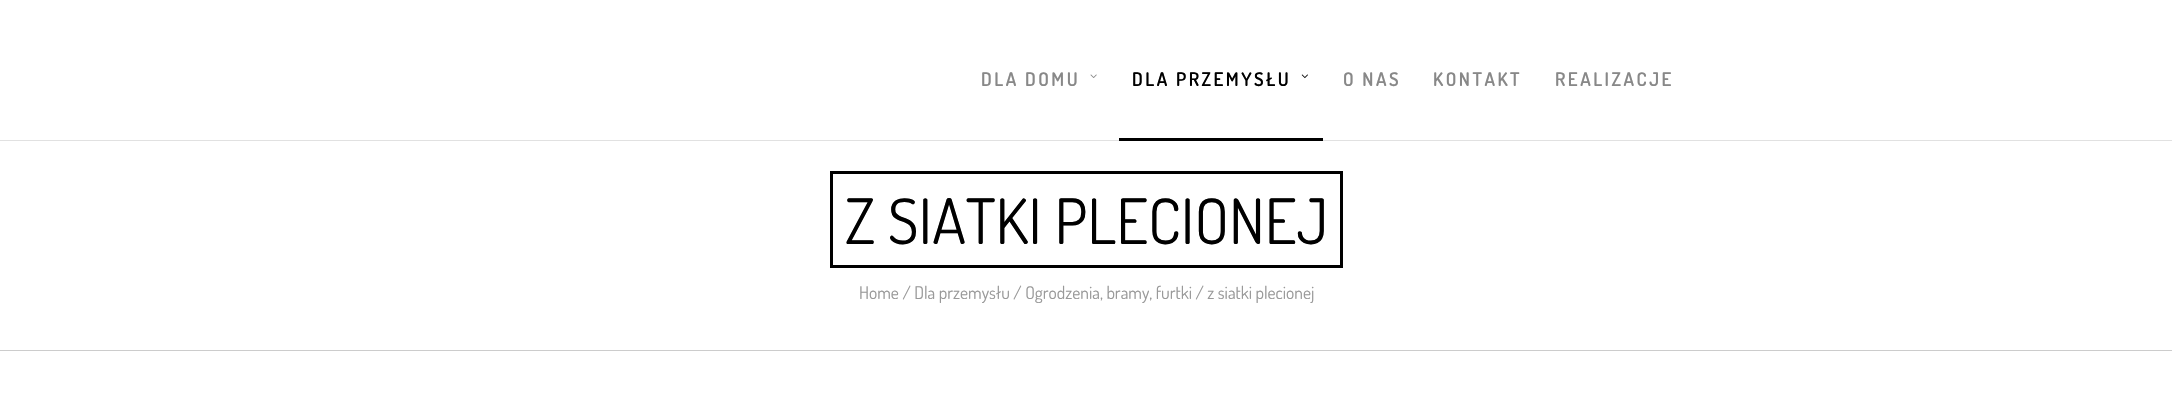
void draw(SkCanvas* canvas) {
	SkPaint paint;
	paint.setAntiAlias(true);
	auto spacedText = [&](const char* s, float x, float y, const SkFont& font, const SkPaint& ink, float letter, float word) {
		std::vector<SkGlyphID> glyphs(font.countText(s, strlen(s), SkTextEncoding::kUTF8));
		std::vector<float> xs(glyphs.size());
		font.textToGlyphs(s, strlen(s), SkTextEncoding::kUTF8, glyphs);
		font.getXPos(glyphs, xs, x);
		float extra = 0;
		for (size_t i = 0; i < glyphs.size(); i++) {
			xs[i] += extra;
			extra += letter + word * (glyphs[i] == font.unicharToGlyph(' '));
		}
		canvas->drawTextBlob(SkTextBlob::MakeFromPosHGlyphs(glyphs, xs, y, font), 0, 0, ink);
	};
	canvas->clear(0xffffffff);
	paint.setColor(0xffe1e1e1);
	canvas->drawRect(SkRect::MakeXYWH(0, 140, 2172, 1), paint);
	SkFont f1(fontMgr->matchFamilyStyle("Dosis", SkFontStyle(600, SkFontStyle::kNormal_Width, SkFontStyle::kUpright_Slant)), 18.75);
	f1.setSubpixel(true);
	paint.setColor(0xff888888);
	spacedText("DLA DOMU", 981, 86, f1, paint, 2.5, 0);
	canvas->drawImageRect(SkImages::DeferredFromEncodedData(SkData::MakeFromFileName("img1.png")), SkRect::MakeXYWH(1090, 74, 7, 4), SkSamplingOptions());
	paint.setColor(0xff000000);
	canvas->drawRect(SkRect::MakeXYWH(1119, 138, 204, 3), paint);
	spacedText("DLA PRZEMYSŁU", 1132, 86, f1, paint, 2.5, 0);
	canvas->drawImageRect(SkImages::DeferredFromEncodedData(SkData::MakeFromFileName("img2.png")), SkRect::MakeXYWH(1301, 74, 7, 5), SkSamplingOptions());
	paint.setColor(0xff888888);
	spacedText("O NAS", 1343, 86, f1, paint, 2.5, 0);
	spacedText("KONTAKT", 1433, 86, f1, paint, 2.5, 0);
	spacedText("REALIZACJE", 1555, 86, f1, paint, 2.5, 0);
	paint.setColor(0xffcccccc);
	canvas->drawRect(SkRect::MakeXYWH(0, 350, 2172, 1), paint);
	paint.setStroke(true);
	paint.setStrokeWidth(3);
	paint.setColor(0xff000000);
	canvas->drawRect(SkRect::MakeXYWH(831.5, 172.5, 510, 94), paint);
	SkFont f2(fontMgr->matchFamilyStyle("Dosis", SkFontStyle::Normal()), 62.5);
	f2.setSubpixel(true);
	paint.setStroke(false);
	canvas->drawString("Z SIATKI PLECIONEJ", 845, 244, f2, paint);
	SkFont f3(fontMgr->matchFamilyStyle("Dosis", SkFontStyle::Normal()), 17.5);
	f3.setSubpixel(true);
	paint.setColor(0xff999999);
	canvas->drawString("Home / Dla przemysłu / Ogrodzenia, bramy, furtki / z siatki plecionej", 859, 299, f3, paint);
}
